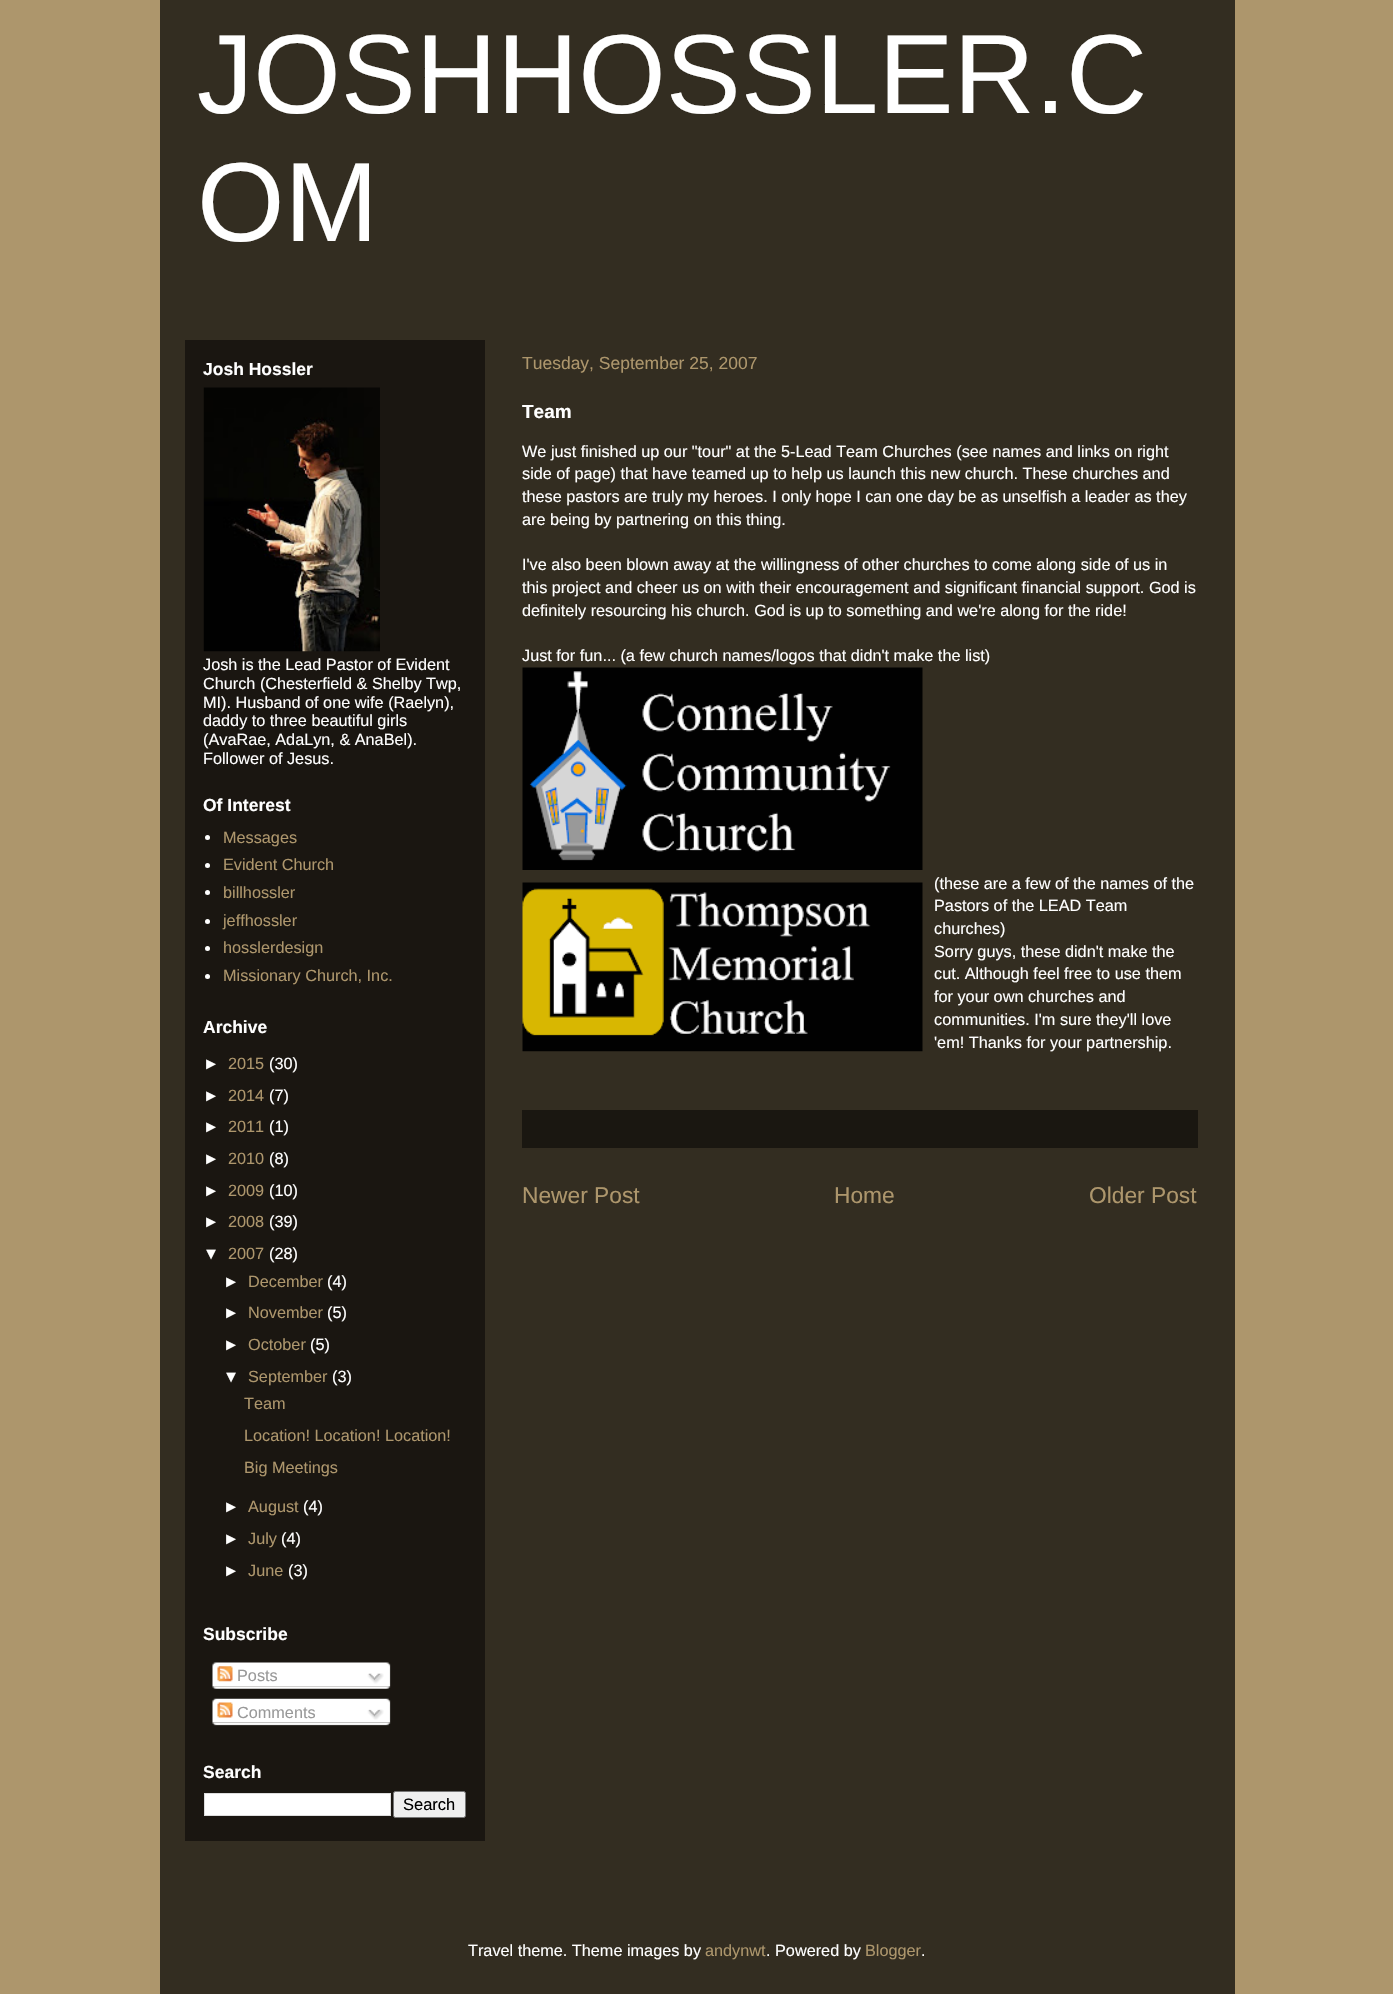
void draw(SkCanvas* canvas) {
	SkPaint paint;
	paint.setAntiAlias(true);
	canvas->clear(0xffad966c);
	paint.setColor(0xff332d21);
	canvas->drawRect(SkRect::MakeXYWH(160, 0, 1075, 1994), paint);
	SkFont f1(fontMgr->matchFamilyStyle("Liberation Sans", SkFontStyle::Normal()), 112.5);
	f1.setSubpixel(true);
	paint.setColor(0xffffffff);
	canvas->drawString("JOSHHOSSLER.C", 197, 113, f1, paint);
	canvas->drawString("OM", 197, 241, f1, paint);
	paint.setColor(0xff1a1611);
	canvas->drawRect(SkRect::MakeXYWH(185, 340, 300, 1501), paint);
	SkFont f2(fontMgr->matchFamilyStyle("Liberation Sans", SkFontStyle::Bold()), 17.5);
	f2.setSubpixel(true);
	paint.setColor(0xffffffff);
	canvas->drawString("Josh Hossler", 203, 375, f2, paint);
	canvas->drawImageRect(SkImages::DeferredFromEncodedData(SkData::MakeFromFileName("img1.png")), SkRect::MakeXYWH(203, 387, 177, 265), SkSamplingOptions());
	SkFont f3(fontMgr->matchFamilyStyle("Liberation Sans", SkFontStyle::Normal()), 16.25);
	f3.setSubpixel(true);
	canvas->drawString("Josh is the Lead Pastor of Evident", 203, 670, f3, paint);
	canvas->drawString("Church (Chesterfield & Shelby Twp,", 203, 689, f3, paint);
	canvas->drawString("MI). Husband of one wife (Raelyn),", 203, 708, f3, paint);
	canvas->drawString("daddy to three beautiful girls", 203, 726, f3, paint);
	canvas->drawString("(AvaRae, AdaLyn, & AnaBel).", 203, 745, f3, paint);
	canvas->drawString("Follower of Jesus.", 203, 764, f3, paint);
	canvas->drawString("Of Interest", 203, 811, f2, paint);
	canvas->drawCircle(207.5, 837.5, 2.5, paint);
	paint.setColor(0xffad966c);
	canvas->drawString("Messages", 223, 843, f3, paint);
	paint.setColor(0xffffffff);
	canvas->drawCircle(207.5, 865.5, 2.5, paint);
	paint.setColor(0xffad966c);
	canvas->drawString("Evident Church", 223, 870, f3, paint);
	paint.setColor(0xffffffff);
	canvas->drawCircle(207.5, 892.5, 2.5, paint);
	paint.setColor(0xffad966c);
	canvas->drawString("billhossler", 223, 898, f3, paint);
	paint.setColor(0xffffffff);
	canvas->drawCircle(207.5, 921.5, 2.5, paint);
	paint.setColor(0xffad966c);
	canvas->drawString("jeffhossler", 223, 926, f3, paint);
	paint.setColor(0xffffffff);
	canvas->drawCircle(207.5, 948.5, 2.5, paint);
	paint.setColor(0xffad966c);
	canvas->drawString("hosslerdesign", 223, 953, f3, paint);
	paint.setColor(0xffffffff);
	canvas->drawCircle(207.5, 976.5, 2.5, paint);
	paint.setColor(0xffad966c);
	canvas->drawString("Missionary Church, Inc.", 223, 981, f3, paint);
	paint.setColor(0xffffffff);
	canvas->drawString("Archive", 203, 1033, f2, paint);
	canvas->drawString("►", 203, 1069, f3, paint);
	paint.setColor(0xffad966c);
	canvas->drawString("2015", 228, 1069, f3, paint);
	paint.setColor(0xffffffff);
	canvas->drawString("(30)", 269, 1069, f3, paint);
	canvas->drawString("►", 203, 1101, f3, paint);
	paint.setColor(0xffad966c);
	canvas->drawString("2014", 228, 1101, f3, paint);
	paint.setColor(0xffffffff);
	canvas->drawString("(7)", 269, 1101, f3, paint);
	canvas->drawString("►", 203, 1132, f3, paint);
	paint.setColor(0xffad966c);
	canvas->drawString("2011", 228, 1132, f3, paint);
	paint.setColor(0xffffffff);
	canvas->drawString("(1)", 269, 1132, f3, paint);
	canvas->drawString("►", 203, 1164, f3, paint);
	paint.setColor(0xffad966c);
	canvas->drawString("2010", 228, 1164, f3, paint);
	paint.setColor(0xffffffff);
	canvas->drawString("(8)", 269, 1164, f3, paint);
	canvas->drawString("►", 203, 1196, f3, paint);
	paint.setColor(0xffad966c);
	canvas->drawString("2009", 228, 1196, f3, paint);
	paint.setColor(0xffffffff);
	canvas->drawString("(10)", 269, 1196, f3, paint);
	canvas->drawString("►", 203, 1227, f3, paint);
	paint.setColor(0xffad966c);
	canvas->drawString("2008", 228, 1227, f3, paint);
	paint.setColor(0xffffffff);
	canvas->drawString("(39)", 269, 1227, f3, paint);
	canvas->drawString("▼", 203, 1259, f3, paint);
	paint.setColor(0xffad966c);
	canvas->drawString("2007", 228, 1259, f3, paint);
	paint.setColor(0xffffffff);
	canvas->drawString("(28)", 269, 1259, f3, paint);
	canvas->drawString("►", 223, 1287, f3, paint);
	paint.setColor(0xffad966c);
	canvas->drawString("December", 248, 1287, f3, paint);
	paint.setColor(0xffffffff);
	canvas->drawString("(4)", 327, 1287, f3, paint);
	canvas->drawString("►", 223, 1318, f3, paint);
	paint.setColor(0xffad966c);
	canvas->drawString("November", 248, 1318, f3, paint);
	paint.setColor(0xffffffff);
	canvas->drawString("(5)", 327, 1318, f3, paint);
	canvas->drawString("►", 223, 1350, f3, paint);
	paint.setColor(0xffad966c);
	canvas->drawString("October", 248, 1350, f3, paint);
	paint.setColor(0xffffffff);
	canvas->drawString("(5)", 310, 1350, f3, paint);
	canvas->drawString("▼", 223, 1382, f3, paint);
	paint.setColor(0xffad966c);
	canvas->drawString("September", 248, 1382, f3, paint);
	paint.setColor(0xffffffff);
	canvas->drawString("(3)", 332, 1382, f3, paint);
	paint.setColor(0xffad966c);
	canvas->drawString("Team", 244, 1409, f3, paint);
	canvas->drawString("Location! Location! Location!", 244, 1441, f3, paint);
	canvas->drawString("Big Meetings", 244, 1473, f3, paint);
	paint.setColor(0xffffffff);
	canvas->drawString("►", 223, 1512, f3, paint);
	paint.setColor(0xffad966c);
	canvas->drawString("August", 248, 1512, f3, paint);
	paint.setColor(0xffffffff);
	canvas->drawString("(4)", 303, 1512, f3, paint);
	canvas->drawString("►", 223, 1544, f3, paint);
	paint.setColor(0xffad966c);
	canvas->drawString("July", 248, 1544, f3, paint);
	paint.setColor(0xffffffff);
	canvas->drawString("(4)", 281, 1544, f3, paint);
	canvas->drawString("►", 223, 1576, f3, paint);
	paint.setColor(0xffad966c);
	canvas->drawString("June", 248, 1576, f3, paint);
	paint.setColor(0xffffffff);
	canvas->drawString("(3)", 288, 1576, f3, paint);
	canvas->drawString("Subscribe", 203, 1640, f2, paint);
	canvas->drawImageRect(SkImages::DeferredFromEncodedData(SkData::MakeFromFileName("img2.png")), SkRect::MakeXYWH(212, 1662, 179, 25), SkSamplingOptions());
	canvas->drawImageRect(SkImages::DeferredFromEncodedData(SkData::MakeFromFileName("img3.png")), SkRect::MakeXYWH(217, 1666, 16, 16), SkSamplingOptions());
	paint.setColor(0xff999999);
	canvas->drawString("Posts", 237, 1681, f3, paint);
	canvas->drawImageRect(SkImages::DeferredFromEncodedData(SkData::MakeFromFileName("img4.png")), SkRect::MakeXYWH(367, 1673, 17, 11), SkSamplingOptions());
	canvas->drawImageRect(SkImages::DeferredFromEncodedData(SkData::MakeFromFileName("img5.png")), SkRect::MakeXYWH(212, 1686, 179, 3), SkSamplingOptions());
	canvas->drawImageRect(SkImages::DeferredFromEncodedData(SkData::MakeFromFileName("img6.png")), SkRect::MakeXYWH(212, 1698, 179, 25), SkSamplingOptions());
	canvas->drawImageRect(SkImages::DeferredFromEncodedData(SkData::MakeFromFileName("img7.png")), SkRect::MakeXYWH(217, 1702, 16, 16), SkSamplingOptions());
	canvas->drawString("Comments", 237, 1718, f3, paint);
	canvas->drawImageRect(SkImages::DeferredFromEncodedData(SkData::MakeFromFileName("img8.png")), SkRect::MakeXYWH(367, 1709, 17, 11), SkSamplingOptions());
	canvas->drawImageRect(SkImages::DeferredFromEncodedData(SkData::MakeFromFileName("img9.png")), SkRect::MakeXYWH(212, 1722, 179, 4), SkSamplingOptions());
	paint.setColor(0xffffffff);
	canvas->drawString("Search", 203, 1778, f2, paint);
	canvas->drawRect(SkRect::MakeXYWH(204.5, 1793.5, 186, 22), paint);
	paint.setStroke(true);
	paint.setStrokeWidth(1);
	paint.setColor(0xffdddddd);
	canvas->drawRect(SkRect::MakeXYWH(204.5, 1793.5, 186, 22), paint);
	paint.setStroke(false);
	paint.setColor(0xffefefef);
	canvas->drawRoundRect(SkRect::MakeXYWH(393.5, 1791.5, 72, 26), 2, 2, paint);
	paint.setStroke(true);
	paint.setColor(0xff767676);
	canvas->drawRoundRect(SkRect::MakeXYWH(393.5, 1791.5, 72, 26), 2, 2, paint);
	SkFont f4(fontMgr->matchFamilyStyle("Liberation Sans", SkFontStyle::Normal()), 16.5);
	f4.setSubpixel(true);
	paint.setStroke(false);
	paint.setColor(0xff000000);
	canvas->drawString("Search", 403, 1810, f4, paint);
	SkFont f5(fontMgr->matchFamilyStyle("Liberation Sans", SkFontStyle::Normal()), 17.5);
	f5.setSubpixel(true);
	paint.setColor(0xffad966c);
	canvas->drawString("Tuesday, September 25, 2007", 522, 369, f5, paint);
	SkFont f6(fontMgr->matchFamilyStyle("Liberation Sans", SkFontStyle::Bold()), 19);
	f6.setSubpixel(true);
	paint.setColor(0xffffffff);
	canvas->drawString("Team", 522, 418, f6, paint);
	canvas->drawString("We just finished up our \"tour\" at the 5-Lead Team Churches (see names and links on right", 522, 457, f3, paint);
	canvas->drawString("side of page) that have teamed up to help us launch this new church. These churches and", 522, 479, f3, paint);
	canvas->drawString("these pastors are truly my heroes. I only hope I can one day be as unselfish a leader as they", 522, 502, f3, paint);
	canvas->drawString("are being by partnering on this thing.", 522, 525, f3, paint);
	canvas->drawString("I've also been blown away at the willingness of other churches to come along side of us in", 522, 570, f3, paint);
	canvas->drawString("this project and cheer us on with their encouragement and significant financial support. God is", 522, 593, f3, paint);
	canvas->drawString("definitely resourcing his church. God is up to something and we're along for the ride!", 522, 616, f3, paint);
	canvas->drawString("Just for fun... (a few church names/logos that didn't make the list)", 522, 661, f3, paint);
	canvas->drawImageRect(SkImages::DeferredFromEncodedData(SkData::MakeFromFileName("img10.png")), SkRect::MakeXYWH(522, 667, 401, 203), SkSamplingOptions());
	canvas->drawImageRect(SkImages::DeferredFromEncodedData(SkData::MakeFromFileName("img11.png")), SkRect::MakeXYWH(522, 882, 401, 170), SkSamplingOptions());
	canvas->drawString("(these are a few of the names of the", 934, 889, f3, paint);
	canvas->drawString("Pastors of the LEAD Team", 934, 911, f3, paint);
	canvas->drawString("churches)", 934, 934, f3, paint);
	canvas->drawString("Sorry guys, these didn't make the", 934, 957, f3, paint);
	canvas->drawString("cut. Although feel free to use them", 934, 979, f3, paint);
	canvas->drawString("for your own churches and", 934, 1002, f3, paint);
	canvas->drawString("communities. I'm sure they'll love", 934, 1025, f3, paint);
	canvas->drawString("'em! Thanks for your partnership.", 934, 1048, f3, paint);
	paint.setColor(0xff1a1711);
	canvas->drawRect(SkRect::MakeXYWH(522, 1110, 676, 38), paint);
	SkFont f7(fontMgr->matchFamilyStyle("Liberation Sans", SkFontStyle::Normal()), 22.75);
	f7.setSubpixel(true);
	paint.setColor(0xffad966c);
	canvas->drawString("Newer Post", 522, 1203, f7, paint);
	canvas->drawString("Home", 834, 1203, f7, paint);
	canvas->drawString("Older Post", 1089, 1203, f7, paint);
	paint.setColor(0xffffffff);
	canvas->drawString("Travel theme. Theme images by", 468, 1956, f3, paint);
	paint.setColor(0xffad966c);
	canvas->drawString("andynwt", 705, 1956, f3, paint);
	paint.setColor(0xffffffff);
	canvas->drawString(". Powered by", 766, 1956, f3, paint);
	paint.setColor(0xffad966c);
	canvas->drawString("Blogger", 865, 1956, f3, paint);
	paint.setColor(0xffffffff);
	canvas->drawString(".", 921, 1956, f3, paint);
}
